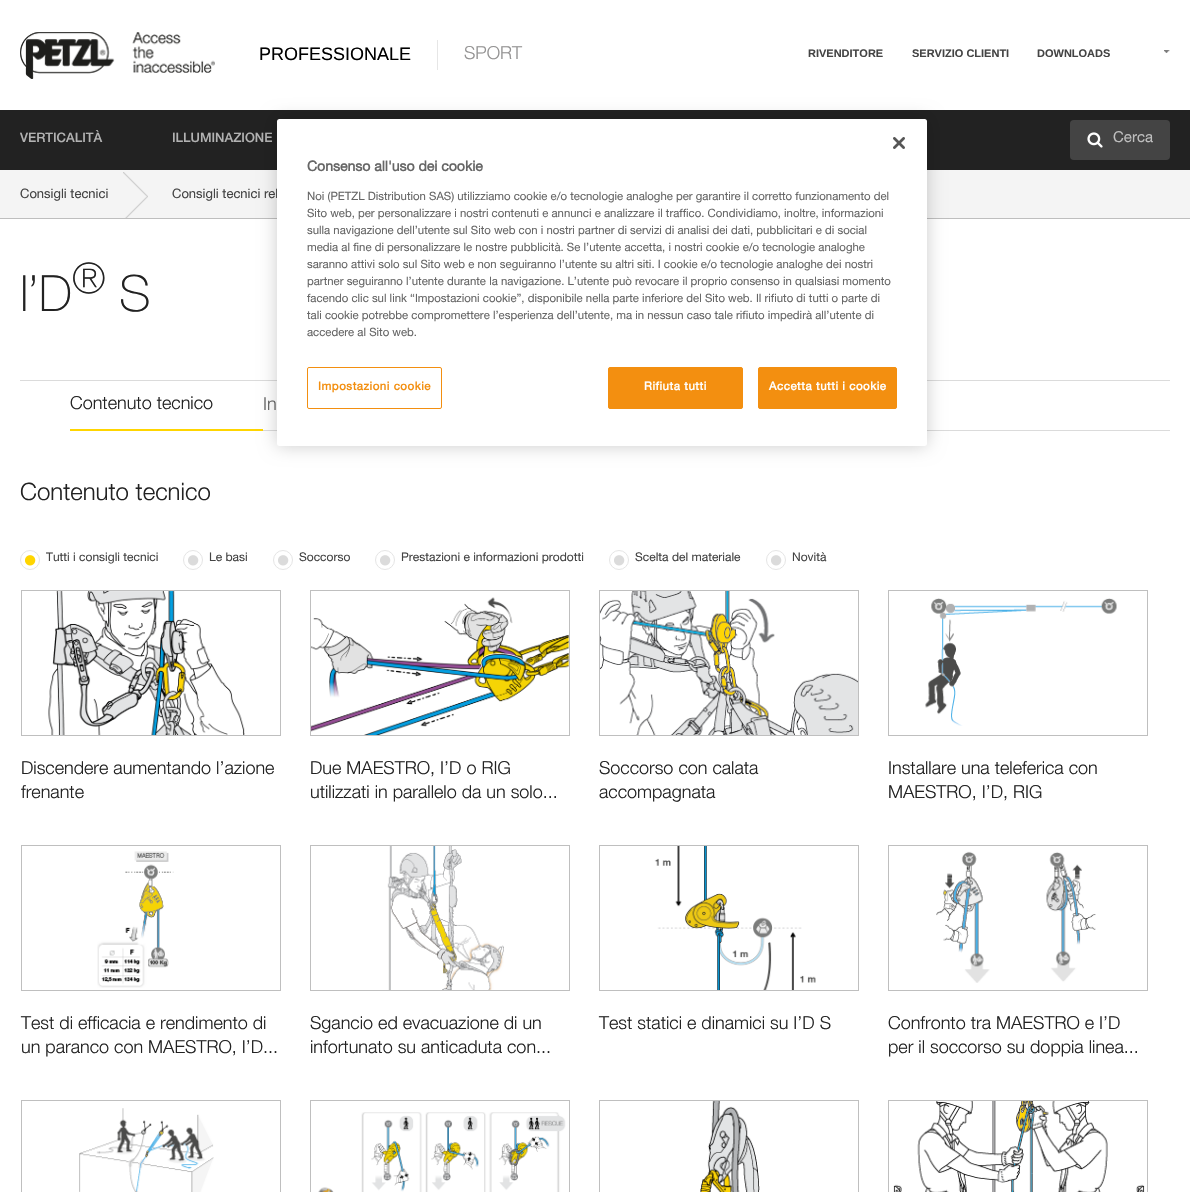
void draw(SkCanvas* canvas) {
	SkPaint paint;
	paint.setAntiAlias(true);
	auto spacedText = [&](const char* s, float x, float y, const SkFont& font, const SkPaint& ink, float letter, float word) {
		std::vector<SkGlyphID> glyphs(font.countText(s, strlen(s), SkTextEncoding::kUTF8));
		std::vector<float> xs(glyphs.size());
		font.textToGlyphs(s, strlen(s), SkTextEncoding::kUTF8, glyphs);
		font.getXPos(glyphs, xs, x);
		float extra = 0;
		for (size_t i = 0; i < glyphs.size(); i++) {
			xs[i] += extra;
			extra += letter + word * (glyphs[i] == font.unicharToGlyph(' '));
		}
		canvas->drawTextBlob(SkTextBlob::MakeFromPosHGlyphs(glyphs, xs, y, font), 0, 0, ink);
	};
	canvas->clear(0xffffffff);
	canvas->drawImageRect(SkImages::DeferredFromEncodedData(SkData::MakeFromFileName("img1.png")), SkRect::MakeXYWH(20, 32, 195, 47), SkSamplingOptions());
	SkFont f1(fontMgr->matchFamilyStyle("Liberation Sans", SkFontStyle::Normal()), 18);
	f1.setSubpixel(true);
	paint.setColor(0xff000000);
	canvas->drawString("PROFESSIONALE", 259, 60, f1, paint);
	paint.setColor(0xffe6e6e6);
	canvas->drawRect(SkRect::MakeXYWH(437, 40, 1, 30), paint);
	SkFont f2(fontMgr->matchFamilyStyle("Helvetica Neue", SkFontStyle(300, SkFontStyle::kNormal_Width, SkFontStyle::kUpright_Slant)), 18);
	f2.setSubpixel(true);
	paint.setColor(0xff939292);
	canvas->drawString("SPORT", 464, 59, f2, paint);
	SkFont f3(fontMgr->matchFamilyStyle("Liberation Sans", SkFontStyle::Bold()), 11);
	f3.setSubpixel(true);
	paint.setColor(0xff444444);
	canvas->drawString("RIVENDITORE", 808, 57, f3, paint);
	canvas->drawString("SERVIZIO CLIENTI", 912, 57, f3, paint);
	canvas->drawString("DOWNLOADS", 1037, 57, f3, paint);
	canvas->drawImageRect(SkImages::DeferredFromEncodedData(SkData::MakeFromFileName("img2.png")), SkRect::MakeXYWH(1164, 50, 6, 3), SkSamplingOptions());
	paint.setColor(0xff222222);
	canvas->drawRect(SkRect::MakeXYWH(0, 110, 1190, 60), paint);
	SkFont f4(fontMgr->matchFamilyStyle("Helvetica Neue", SkFontStyle(500, SkFontStyle::kNormal_Width, SkFontStyle::kUpright_Slant)), 13);
	f4.setSubpixel(true);
	paint.setColor(0xffb2b2b2);
	canvas->drawString("VERTICALITÀ", 20, 142, f4, paint);
	canvas->drawString("ILLUMINAZIONE", 172, 142, f4, paint);
	paint.setColor(0xff444444);
	canvas->drawRoundRect(SkRect::MakeXYWH(1070, 120, 100, 40), 4, 4, paint);
	canvas->drawImageRect(SkImages::DeferredFromEncodedData(SkData::MakeFromFileName("img3.png")), SkRect::MakeXYWH(1087, 132, 16, 16), SkSamplingOptions());
	SkFont f5(fontMgr->matchFamilyStyle("Helvetica Neue", SkFontStyle::Normal()), 15);
	f5.setSubpixel(true);
	paint.setColor(0xffbebebe);
	canvas->drawString("Cerca", 1113, 142, f5, paint);
	paint.setColor(0xfff4f4f4);
	canvas->drawRect(SkRect::MakeXYWH(0, 170, 1190, 48), paint);
	paint.setColor(0xffbebebe);
	canvas->drawRect(SkRect::MakeXYWH(0, 218, 1190, 1), paint);
	SkFont f6(fontMgr->matchFamilyStyle("Helvetica Neue", SkFontStyle::Normal()), 13);
	f6.setSubpixel(true);
	paint.setColor(0xff444444);
	canvas->drawString("Consigli tecnici", 20, 198, f6, paint);
	canvas->drawImageRect(SkImages::DeferredFromEncodedData(SkData::MakeFromFileName("img4.png")), SkRect::MakeXYWH(123, 172, 25, 46), SkSamplingOptions());
	canvas->drawString("Consigli tecnici rel", 172, 198, f6, paint);
	SkFont f7(fontMgr->matchFamilyStyle("Helvetica Neue", SkFontStyle(200, SkFontStyle::kNormal_Width, SkFontStyle::kUpright_Slant)), 50);
	f7.setSubpixel(true);
	paint.setColor(0xff222222);
	canvas->drawString("I’D", 20, 311, f7, paint);
	SkFont f8(fontMgr->matchFamilyStyle("Helvetica Neue", SkFontStyle(200, SkFontStyle::kNormal_Width, SkFontStyle::kUpright_Slant)), 42);
	f8.setSubpixel(true);
	canvas->drawString("®", 72, 293, f8, paint);
	canvas->drawString("S", 119, 311, f7, paint);
	paint.setColor(0xffdbdbdb);
	canvas->drawRect(SkRect::MakeXYWH(20, 380, 1150, 1), paint);
	canvas->drawRect(SkRect::MakeXYWH(263, 430, 907, 1), paint);
	paint.setColor(0xffffd500);
	canvas->drawRect(SkRect::MakeXYWH(70, 429, 193, 2), paint);
	paint.setColor(0xff222222);
	canvas->drawString("Contenuto tecnico", 70, 409, f2, paint);
	paint.setColor(0xff666666);
	canvas->drawString("In", 263, 410, f2, paint);
	SkFont f9(fontMgr->matchFamilyStyle("Helvetica Neue", SkFontStyle(300, SkFontStyle::kNormal_Width, SkFontStyle::kUpright_Slant)), 24);
	f9.setSubpixel(true);
	paint.setColor(0xff222222);
	canvas->drawString("Contenuto tecnico", 20, 500, f9, paint);
	paint.setStroke(true);
	paint.setStrokeWidth(1);
	paint.setColor(0xffe5e5e5);
	canvas->drawCircle(30, 560, 9.5, paint);
	canvas->drawImageRect(SkImages::DeferredFromEncodedData(SkData::MakeFromFileName("img5.png")), SkRect::MakeXYWH(25, 555, 11, 11), SkSamplingOptions());
	SkFont f10(fontMgr->matchFamilyStyle("Helvetica Neue", SkFontStyle::Normal()), 12);
	f10.setSubpixel(true);
	paint.setStroke(false);
	paint.setColor(0xff444444);
	canvas->drawString("Tutti i consigli tecnici", 46, 561, f10, paint);
	paint.setStroke(true);
	paint.setColor(0xffe5e5e5);
	canvas->drawCircle(193, 560, 9.5, paint);
	canvas->drawImageRect(SkImages::DeferredFromEncodedData(SkData::MakeFromFileName("img6.png")), SkRect::MakeXYWH(188, 555, 11, 11), SkSamplingOptions());
	paint.setStroke(false);
	paint.setColor(0xff444444);
	canvas->drawString("Le basi", 209, 561, f10, paint);
	paint.setStroke(true);
	paint.setColor(0xffe5e5e5);
	canvas->drawCircle(283, 560, 9.5, paint);
	canvas->drawImageRect(SkImages::DeferredFromEncodedData(SkData::MakeFromFileName("img6.png")), SkRect::MakeXYWH(278, 555, 11, 11), SkSamplingOptions());
	paint.setStroke(false);
	paint.setColor(0xff444444);
	canvas->drawString("Soccorso", 299, 561, f10, paint);
	paint.setStroke(true);
	paint.setColor(0xffe5e5e5);
	canvas->drawCircle(385, 560, 9.5, paint);
	canvas->drawImageRect(SkImages::DeferredFromEncodedData(SkData::MakeFromFileName("img6.png")), SkRect::MakeXYWH(380, 555, 11, 11), SkSamplingOptions());
	paint.setStroke(false);
	paint.setColor(0xff444444);
	canvas->drawString("Prestazioni e informazioni prodotti", 401, 561, f10, paint);
	paint.setStroke(true);
	paint.setColor(0xffe5e5e5);
	canvas->drawCircle(619, 560, 9.5, paint);
	canvas->drawImageRect(SkImages::DeferredFromEncodedData(SkData::MakeFromFileName("img6.png")), SkRect::MakeXYWH(614, 555, 11, 11), SkSamplingOptions());
	paint.setStroke(false);
	paint.setColor(0xff444444);
	canvas->drawString("Scelta del materiale", 635, 561, f10, paint);
	paint.setStroke(true);
	paint.setColor(0xffe5e5e5);
	canvas->drawCircle(776, 560, 9.5, paint);
	canvas->drawImageRect(SkImages::DeferredFromEncodedData(SkData::MakeFromFileName("img6.png")), SkRect::MakeXYWH(771, 555, 11, 11), SkSamplingOptions());
	paint.setStroke(false);
	paint.setColor(0xff444444);
	canvas->drawString("Novità", 792, 561, f10, paint);
	paint.setStroke(true);
	paint.setColor(0xffbfbfbf);
	canvas->drawRect(SkRect::MakeXYWH(21.5, 590.5, 259, 145), paint);
	canvas->drawImageRect(SkImages::DeferredFromEncodedData(SkData::MakeFromFileName("img7.png")), SkRect::MakeXYWH(48, 591, 197, 144), SkSamplingOptions());
	paint.setStroke(false);
	paint.setColor(0xff222222);
	canvas->drawString("Discendere aumentando l’azione", 21, 774, f2, paint);
	canvas->drawString("frenante", 21, 798, f2, paint);
	paint.setStroke(true);
	paint.setColor(0xffbfbfbf);
	canvas->drawRect(SkRect::MakeXYWH(310.5, 590.5, 259, 145), paint);
	canvas->drawImageRect(SkImages::DeferredFromEncodedData(SkData::MakeFromFileName("img8.png")), SkRect::MakeXYWH(311, 597, 258, 138), SkSamplingOptions());
	paint.setStroke(false);
	paint.setColor(0xff222222);
	canvas->drawString("Due MAESTRO, I’D o RIG", 310, 774, f2, paint);
	canvas->drawString("utilizzati in parallelo da un solo...", 310, 798, f2, paint);
	paint.setStroke(true);
	paint.setColor(0xffbfbfbf);
	canvas->drawRect(SkRect::MakeXYWH(599.5, 590.5, 259, 145), paint);
	canvas->drawImageRect(SkImages::DeferredFromEncodedData(SkData::MakeFromFileName("img9.png")), SkRect::MakeXYWH(600, 591, 258, 144), SkSamplingOptions());
	paint.setStroke(false);
	paint.setColor(0xff222222);
	canvas->drawString("Soccorso con calata", 599, 774, f2, paint);
	canvas->drawString("accompagnata", 599, 798, f2, paint);
	paint.setStroke(true);
	paint.setColor(0xffbfbfbf);
	canvas->drawRect(SkRect::MakeXYWH(888.5, 590.5, 259, 145), paint);
	canvas->drawImageRect(SkImages::DeferredFromEncodedData(SkData::MakeFromFileName("img10.png")), SkRect::MakeXYWH(925, 598, 192, 128), SkSamplingOptions());
	paint.setStroke(false);
	paint.setColor(0xff222222);
	canvas->drawString("Installare una teleferica con", 888, 774, f2, paint);
	canvas->drawString("MAESTRO, I’D, RIG", 888, 798, f2, paint);
	paint.setStroke(true);
	paint.setColor(0xffbfbfbf);
	canvas->drawRect(SkRect::MakeXYWH(21.5, 845.5, 259, 145), paint);
	canvas->drawImageRect(SkImages::DeferredFromEncodedData(SkData::MakeFromFileName("img11.png")), SkRect::MakeXYWH(97, 851, 77, 137), SkSamplingOptions());
	paint.setStroke(false);
	paint.setColor(0xff222222);
	canvas->drawString("Test di efficacia e rendimento di", 21, 1029, f2, paint);
	canvas->drawString("un paranco con MAESTRO, I’D...", 21, 1053, f2, paint);
	paint.setStroke(true);
	paint.setColor(0xffbfbfbf);
	canvas->drawRect(SkRect::MakeXYWH(310.5, 845.5, 259, 145), paint);
	canvas->drawImageRect(SkImages::DeferredFromEncodedData(SkData::MakeFromFileName("img12.png")), SkRect::MakeXYWH(387, 846, 117, 144), SkSamplingOptions());
	paint.setStroke(false);
	paint.setColor(0xff222222);
	canvas->drawString("Sgancio ed evacuazione di un", 310, 1029, f2, paint);
	canvas->drawString("infortunato su anticaduta con...", 310, 1053, f2, paint);
	paint.setStroke(true);
	paint.setColor(0xffbfbfbf);
	canvas->drawRect(SkRect::MakeXYWH(599.5, 845.5, 259, 145), paint);
	canvas->drawImageRect(SkImages::DeferredFromEncodedData(SkData::MakeFromFileName("img13.png")), SkRect::MakeXYWH(654, 846, 162, 144), SkSamplingOptions());
	paint.setStroke(false);
	paint.setColor(0xff222222);
	canvas->drawString("Test statici e dinamici su I’D S", 599, 1029, f2, paint);
	paint.setStroke(true);
	paint.setColor(0xffbfbfbf);
	canvas->drawRect(SkRect::MakeXYWH(888.5, 845.5, 259, 145), paint);
	canvas->drawImageRect(SkImages::DeferredFromEncodedData(SkData::MakeFromFileName("img14.png")), SkRect::MakeXYWH(936, 851, 160, 132), SkSamplingOptions());
	paint.setStroke(false);
	paint.setColor(0xff222222);
	canvas->drawString("Confronto tra MAESTRO e I’D", 888, 1029, f2, paint);
	canvas->drawString("per il soccorso su doppia linea...", 888, 1053, f2, paint);
	paint.setStroke(true);
	paint.setColor(0xffbfbfbf);
	canvas->drawRect(SkRect::MakeXYWH(21.5, 1100.5, 259, 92), paint);
	canvas->drawImageRect(SkImages::DeferredFromEncodedData(SkData::MakeFromFileName("img15.png")), SkRect::MakeXYWH(79, 1108, 135, 84), SkSamplingOptions());
	canvas->drawRect(SkRect::MakeXYWH(310.5, 1100.5, 259, 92), paint);
	canvas->drawImageRect(SkImages::DeferredFromEncodedData(SkData::MakeFromFileName("img16.png")), SkRect::MakeXYWH(318, 1112, 248, 80), SkSamplingOptions());
	canvas->drawRect(SkRect::MakeXYWH(599.5, 1100.5, 259, 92), paint);
	canvas->drawImageRect(SkImages::DeferredFromEncodedData(SkData::MakeFromFileName("img17.png")), SkRect::MakeXYWH(700, 1101, 60, 91), SkSamplingOptions());
	canvas->drawRect(SkRect::MakeXYWH(888.5, 1100.5, 259, 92), paint);
	canvas->drawImageRect(SkImages::DeferredFromEncodedData(SkData::MakeFromFileName("img18.png")), SkRect::MakeXYWH(893, 1101, 252, 91), SkSamplingOptions());
	paint.setStroke(false);
	paint.setColor(0x33000000);
	paint.setMaskFilter(SkMaskFilter::MakeBlur(kNormal_SkBlurStyle, 9));
	canvas->drawRoundRect(SkRect::MakeXYWH(277, 119, 650, 327), 2.5, 2.5, paint);
	paint.setMaskFilter(nullptr);
	paint.setColor(0xffffffff);
	canvas->drawRoundRect(SkRect::MakeXYWH(277, 119, 650, 327), 2.5, 2.5, paint);
	canvas->drawImageRect(SkImages::DeferredFromEncodedData(SkData::MakeFromFileName("img19.png")), SkRect::MakeXYWH(893, 137, 12, 12), SkSamplingOptions());
	SkFont f11(fontMgr->matchFamilyStyle("Helvetica Neue", SkFontStyle::Bold()), 14);
	f11.setSubpixel(true);
	paint.setColor(0xff666666);
	canvas->drawString("Consenso all'uso dei cookie", 307, 171, f11, paint);
	SkFont f12(fontMgr->matchFamilyStyle("Helvetica Neue", SkFontStyle::Normal()), 11.38);
	f12.setSubpixel(true);
	canvas->drawString("Noi (PETZL Distribution SAS) utilizziamo cookie e/o tecnologie analoghe per garantire il corretto funzionamento del", 307, 200, f12, paint);
	canvas->drawString("Sito web, per personalizzare i nostri contenuti e annunci e analizzare il traffico. Condividiamo, inoltre, informazioni", 307, 217, f12, paint);
	canvas->drawString("sulla navigazione dell’utente sul Sito web con i nostri partner di servizi di analisi dei dati, pubblicitari e di social", 307, 234, f12, paint);
	canvas->drawString("media al fine di personalizzare le nostre pubblicità. Se l’utente accetta, i nostri cookie e/o tecnologie analoghe", 307, 251, f12, paint);
	canvas->drawString("saranno attivi solo sul Sito web e non seguiranno l’utente su altri siti. I cookie e/o tecnologie analoghe dei nostri", 307, 268, f12, paint);
	canvas->drawString("partner seguiranno l’utente durante la navigazione. L’utente può revocare il proprio consenso in qualsiasi momento", 307, 285, f12, paint);
	canvas->drawString("facendo clic sul link “Impostazioni cookie”, disponibile nella parte inferiore del Sito web. Il rifiuto di tutti o parte di", 307, 302, f12, paint);
	canvas->drawString("tali cookie potrebbe compromettere l’esperienza dell’utente, ma in nessun caso tale rifiuto impedirà all’utente di", 307, 319, f12, paint);
	canvas->drawString("accedere al Sito web.", 307, 336, f12, paint);
	paint.setStroke(true);
	paint.setColor(0xfff38f10);
	canvas->drawRoundRect(SkRect::MakeXYWH(307.5, 367.5, 134, 41), 1.5, 1.5, paint);
	SkFont f13(fontMgr->matchFamilyStyle("Helvetica Neue", SkFontStyle::Bold()), 11.38);
	f13.setSubpixel(true);
	paint.setStroke(false);
	spacedText("Impostazioni cookie", 318, 390, f13, paint, 0.6, 0);
	canvas->drawRoundRect(SkRect::MakeXYWH(608.5, 367.5, 134, 41), 1.5, 1.5, paint);
	paint.setStroke(true);
	canvas->drawRoundRect(SkRect::MakeXYWH(608.5, 367.5, 134, 41), 1.5, 1.5, paint);
	paint.setStroke(false);
	paint.setColor(0xffffffff);
	spacedText("Rifiuta tutti", 644, 390, f13, paint, 0.6, 0);
	paint.setColor(0xfff38f10);
	canvas->drawRoundRect(SkRect::MakeXYWH(758.5, 367.5, 138, 41), 1.5, 1.5, paint);
	paint.setStroke(true);
	canvas->drawRoundRect(SkRect::MakeXYWH(758.5, 367.5, 138, 41), 1.5, 1.5, paint);
	paint.setStroke(false);
	paint.setColor(0xffffffff);
	spacedText("Accetta tutti i cookie", 769, 390, f13, paint, 0.6, 0);
}
